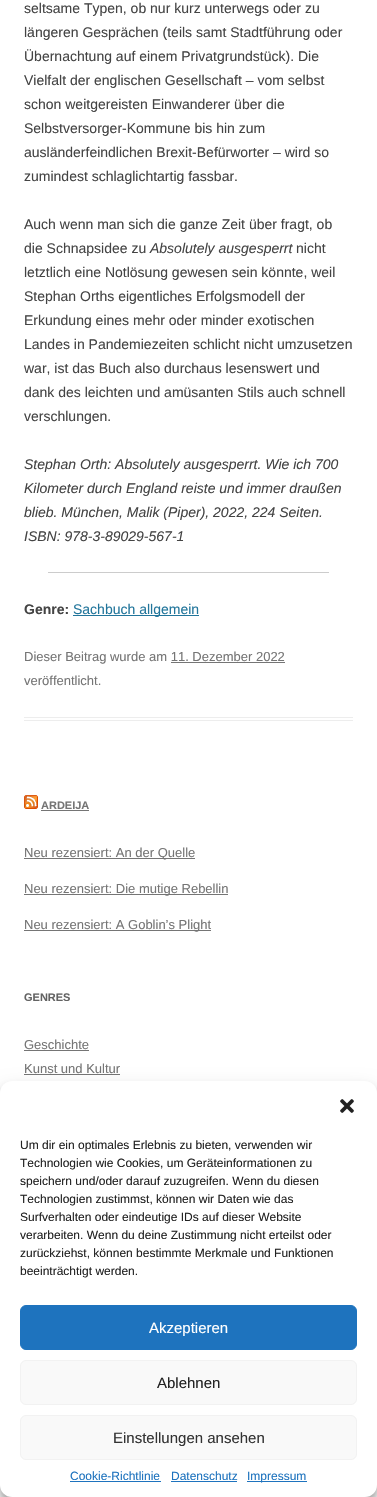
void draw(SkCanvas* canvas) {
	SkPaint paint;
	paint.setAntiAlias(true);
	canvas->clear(0xffffffff);
	paint.setColor(0xffededed);
	canvas->drawRect(SkRect::MakeXYWH(24, 717, 329, 1), paint);
	canvas->drawRect(SkRect::MakeXYWH(24, 720, 329, 1), paint);
	SkFont f1(fontMgr->matchFamilyStyle("Liberation Sans", SkFontStyle::Normal()), 14);
	f1.setSubpixel(true);
	paint.setColor(0xff444444);
	canvas->drawString("seltsame Typen, ob nur kurz unterwegs oder zu", 24, 13, f1, paint);
	canvas->drawString("längeren Gesprächen (teils samt Stadtführung oder", 24, 37, f1, paint);
	canvas->drawString("Übernachtung auf einem Privatgrundstück). Die", 24, 61, f1, paint);
	canvas->drawString("Vielfalt der englischen Gesellschaft – vom selbst", 24, 85, f1, paint);
	canvas->drawString("schon weitgereisten Einwanderer über die", 24, 109, f1, paint);
	canvas->drawString("Selbstversorger-Kommune bis hin zum", 24, 133, f1, paint);
	canvas->drawString("ausländerfeindlichen Brexit-Befürworter – wird so", 24, 157, f1, paint);
	canvas->drawString("zumindest schlaglichtartig fassbar.", 24, 181, f1, paint);
	canvas->drawString("Auch wenn man sich die ganze Zeit über fragt, ob", 24, 229, f1, paint);
	canvas->drawString("die Schnapsidee zu", 24, 253, f1, paint);
	SkFont f2(fontMgr->matchFamilyStyle("Liberation Sans", SkFontStyle::Italic()), 14);
	f2.setSubpixel(true);
	canvas->drawString("Absolutely ausgesperrt", 150, 253, f2, paint);
	canvas->drawString("nicht", 296, 253, f1, paint);
	canvas->drawString("letztlich eine Notlösung gewesen sein könnte, weil", 24, 277, f1, paint);
	canvas->drawString("Stephan Orths eigentliches Erfolgsmodell der", 24, 301, f1, paint);
	canvas->drawString("Erkundung eines mehr oder minder exotischen", 24, 325, f1, paint);
	canvas->drawString("Landes in Pandemiezeiten schlicht nicht umzusetzen", 24, 349, f1, paint);
	canvas->drawString("war, ist das Buch also durchaus lesenswert und", 24, 373, f1, paint);
	canvas->drawString("dank des leichten und amüsanten Stils auch schnell", 24, 397, f1, paint);
	canvas->drawString("verschlungen.", 24, 421, f1, paint);
	canvas->drawString("Stephan Orth: Absolutely ausgesperrt. Wie ich 700", 24, 469, f2, paint);
	canvas->drawString("Kilometer durch England reiste und immer draußen", 24, 493, f2, paint);
	canvas->drawString("blieb. München, Malik (Piper), 2022, 224 Seiten.", 24, 517, f2, paint);
	canvas->drawString("ISBN: 978-3-89029-567-1", 24, 541, f2, paint);
	paint.setColor(0xffcccccc);
	canvas->drawRect(SkRect::MakeXYWH(48, 572, 281, 1), paint);
	SkFont f3(fontMgr->matchFamilyStyle("Liberation Sans", SkFontStyle::Bold()), 14);
	f3.setSubpixel(true);
	paint.setColor(0xff444444);
	canvas->drawString("Genre:", 24, 614, f3, paint);
	paint.setColor(0xff21759b);
	canvas->drawRect(SkRect::MakeXYWH(73, 615, 126, 1), paint);
	canvas->drawString("Sachbuch allgemein", 73, 614, f1, paint);
	SkFont f4(fontMgr->matchFamilyStyle("Liberation Sans", SkFontStyle::Normal()), 13);
	f4.setSubpixel(true);
	paint.setColor(0xff757575);
	canvas->drawString("Dieser Beitrag wurde am 11. Dezember 2022", 24, 661, f4, paint);
	canvas->drawRect(SkRect::MakeXYWH(171, 662, 114, 1), paint);
	canvas->drawString("veröffentlicht.", 24, 685, f4, paint);
	canvas->drawImageRect(SkImages::DeferredFromEncodedData(SkData::MakeFromFileName("img1.png")), SkRect::MakeXYWH(24, 795, 14, 14), SkSamplingOptions());
	SkFont f5(fontMgr->matchFamilyStyle("Liberation Sans", SkFontStyle::Bold()), 11);
	f5.setSubpixel(true);
	canvas->drawString("ARDEIJA", 41, 809, f5, paint);
	canvas->drawRect(SkRect::MakeXYWH(41, 810, 48, 1), paint);
	canvas->drawRect(SkRect::MakeXYWH(24, 858, 171, 1), paint);
	canvas->drawString("Neu rezensiert: An der Quelle", 24, 857, f4, paint);
	canvas->drawRect(SkRect::MakeXYWH(24, 894, 204, 1), paint);
	canvas->drawString("Neu rezensiert: Die mutige Rebellin", 24, 893, f4, paint);
	canvas->drawRect(SkRect::MakeXYWH(24, 930, 187, 1), paint);
	canvas->drawString("Neu rezensiert: A Goblin’s Plight", 24, 929, f4, paint);
	paint.setColor(0xff636363);
	canvas->drawString("GENRES", 24, 1001, f5, paint);
	paint.setColor(0xff757575);
	canvas->drawString("Geschichte", 24, 1049, f4, paint);
	canvas->drawRect(SkRect::MakeXYWH(24, 1050, 65, 1), paint);
	canvas->drawString("Kunst und Kultur", 24, 1073, f4, paint);
	canvas->drawRect(SkRect::MakeXYWH(24, 1074, 96, 1), paint);
	paint.setColor(0x3b000000);
	paint.setMaskFilter(SkMaskFilter::MakeBlur(kNormal_SkBlurStyle, 3));
	canvas->drawRoundRect(SkRect::MakeXYWH(0, 1087, 377, 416), 12, 12, paint);
	paint.setMaskFilter(nullptr);
	paint.setColor(0x30000000);
	paint.setMaskFilter(SkMaskFilter::MakeBlur(kNormal_SkBlurStyle, 10));
	canvas->drawRoundRect(SkRect::MakeXYWH(0, 1091, 377, 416), 12, 12, paint);
	paint.setMaskFilter(nullptr);
	paint.setColor(0xffffffff);
	canvas->drawRoundRect(SkRect::MakeXYWH(0, 1081, 377, 416), 12, 12, paint);
	canvas->drawImageRect(SkImages::DeferredFromEncodedData(SkData::MakeFromFileName("img2.png")), SkRect::MakeXYWH(340, 1099, 14, 14), SkSamplingOptions());
	SkFont f6(fontMgr->matchFamilyStyle("Liberation Sans", SkFontStyle::Normal()), 12);
	f6.setSubpixel(true);
	paint.setColor(0xff222222);
	canvas->drawString("Um dir ein optimales Erlebnis zu bieten, verwenden wir", 20, 1149, f6, paint);
	canvas->drawString("Technologien wie Cookies, um Geräteinformationen zu", 20, 1167, f6, paint);
	canvas->drawString("speichern und/oder darauf zuzugreifen. Wenn du diesen", 20, 1185, f6, paint);
	canvas->drawString("Technologien zustimmst, können wir Daten wie das", 20, 1203, f6, paint);
	canvas->drawString("Surfverhalten oder eindeutige IDs auf dieser Website", 20, 1221, f6, paint);
	canvas->drawString("verarbeiten. Wenn du deine Zustimmung nicht erteilst oder", 20, 1239, f6, paint);
	canvas->drawString("zurückziehst, können bestimmte Merkmale und Funktionen", 20, 1257, f6, paint);
	canvas->drawString("beeinträchtigt werden.", 20, 1275, f6, paint);
	paint.setColor(0xff1e73be);
	canvas->drawRoundRect(SkRect::MakeXYWH(20.5, 1305.5, 336, 44), 5.5, 5.5, paint);
	paint.setStroke(true);
	paint.setStrokeWidth(1);
	canvas->drawRoundRect(SkRect::MakeXYWH(20.5, 1305.5, 336, 44), 5.5, 5.5, paint);
	SkFont f7(fontMgr->matchFamilyStyle("Liberation Sans", SkFontStyle::Normal()), 15);
	f7.setSubpixel(true);
	paint.setStroke(false);
	paint.setColor(0xffffffff);
	canvas->drawString("Akzeptieren", 149, 1333, f7, paint);
	paint.setColor(0xfff9f9f9);
	canvas->drawRoundRect(SkRect::MakeXYWH(20.5, 1360.5, 336, 44), 5.5, 5.5, paint);
	paint.setStroke(true);
	paint.setColor(0xfff2f2f2);
	canvas->drawRoundRect(SkRect::MakeXYWH(20.5, 1360.5, 336, 44), 5.5, 5.5, paint);
	paint.setStroke(false);
	paint.setColor(0xff222222);
	canvas->drawString("Ablehnen", 157, 1388, f7, paint);
	paint.setColor(0xfff9f9f9);
	canvas->drawRoundRect(SkRect::MakeXYWH(20.5, 1415.5, 336, 44), 5.5, 5.5, paint);
	paint.setStroke(true);
	paint.setColor(0xfff2f2f2);
	canvas->drawRoundRect(SkRect::MakeXYWH(20.5, 1415.5, 336, 44), 5.5, 5.5, paint);
	paint.setStroke(false);
	paint.setColor(0xff333333);
	canvas->drawString("Einstellungen ansehen", 113, 1443, f7, paint);
	paint.setColor(0xff1e73be);
	canvas->drawString("Cookie-Richtlinie", 70, 1480, f6, paint);
	canvas->drawRect(SkRect::MakeXYWH(70, 1481, 91, 1), paint);
	canvas->drawString("Datenschutz", 171, 1480, f6, paint);
	canvas->drawRect(SkRect::MakeXYWH(171, 1481, 66, 1), paint);
	canvas->drawRect(SkRect::MakeXYWH(247, 1481, 60, 1), paint);
	canvas->drawString("Impressum", 247, 1480, f6, paint);
}
